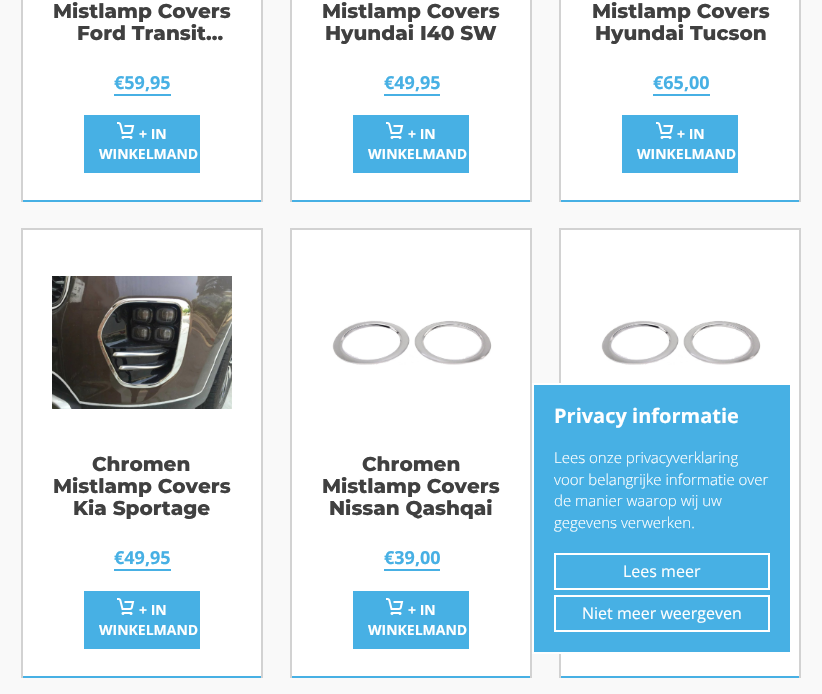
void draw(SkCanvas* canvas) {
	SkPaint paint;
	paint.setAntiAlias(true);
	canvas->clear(0xfff9f9f9);
	paint.setColor(0xffffffff);
	canvas->drawRect(SkRect::MakeXYWH(23, 0, 238, 200), paint);
	paint.setColor(0xff47b0e4);
	canvas->drawRect(SkRect::MakeXYWH(23, 200, 238, 2), paint);
	paint.setColor(0xffd2d2d2);
	canvas->drawRect(SkRect::MakeXYWH(261, 0, 2, 202), paint);
	canvas->drawRect(SkRect::MakeXYWH(21, 0, 2, 202), paint);
	SkFont f1(fontMgr->matchFamilyStyle("Montserrat", SkFontStyle(800, SkFontStyle::kNormal_Width, SkFontStyle::kUpright_Slant)), 20);
	f1.setSubpixel(true);
	paint.setColor(0xff404040);
	canvas->drawString("Mistlamp Covers", 53, 18, f1, paint);
	canvas->drawString("Ford Transit…", 77, 40, f1, paint);
	SkFont f2(fontMgr->matchFamilyStyle("Open Sans", SkFontStyle::Bold()), 18);
	f2.setSubpixel(true);
	paint.setColor(0xff47b0e4);
	canvas->drawString("€59,95", 114, 89, f2, paint);
	canvas->drawRect(SkRect::MakeXYWH(114, 94, 57, 2), paint);
	canvas->drawRect(SkRect::MakeXYWH(84, 115, 116, 58), paint);
	canvas->drawImageRect(SkImages::DeferredFromEncodedData(SkData::MakeFromFileName("img1.png")), SkRect::MakeXYWH(117, 122, 18, 17), SkSamplingOptions());
	SkFont f3(fontMgr->matchFamilyStyle("Open Sans", SkFontStyle::Bold()), 14);
	f3.setSubpixel(true);
	paint.setColor(0xffffffff);
	canvas->drawString("+ IN", 139, 139, f3, paint);
	canvas->drawString("WINKELMAND", 99, 159, f3, paint);
	canvas->drawRect(SkRect::MakeXYWH(292, 0, 238, 200), paint);
	paint.setColor(0xff47b0e4);
	canvas->drawRect(SkRect::MakeXYWH(292, 200, 238, 2), paint);
	paint.setColor(0xffd2d2d2);
	canvas->drawRect(SkRect::MakeXYWH(530, 0, 2, 202), paint);
	canvas->drawRect(SkRect::MakeXYWH(290, 0, 2, 202), paint);
	paint.setColor(0xff404040);
	canvas->drawString("Mistlamp Covers", 322, 18, f1, paint);
	canvas->drawString("Hyundai I40 SW", 325, 40, f1, paint);
	paint.setColor(0xff47b0e4);
	canvas->drawString("€49,95", 384, 89, f2, paint);
	canvas->drawRect(SkRect::MakeXYWH(384, 94, 56, 2), paint);
	canvas->drawRect(SkRect::MakeXYWH(353, 115, 116, 58), paint);
	canvas->drawImageRect(SkImages::DeferredFromEncodedData(SkData::MakeFromFileName("img1.png")), SkRect::MakeXYWH(386, 122, 18, 17), SkSamplingOptions());
	paint.setColor(0xffffffff);
	canvas->drawString("+ IN", 408, 139, f3, paint);
	canvas->drawString("WINKELMAND", 368, 159, f3, paint);
	canvas->drawRect(SkRect::MakeXYWH(561, 0, 238, 200), paint);
	paint.setColor(0xff47b0e4);
	canvas->drawRect(SkRect::MakeXYWH(561, 200, 238, 2), paint);
	paint.setColor(0xffd2d2d2);
	canvas->drawRect(SkRect::MakeXYWH(799, 0, 2, 202), paint);
	canvas->drawRect(SkRect::MakeXYWH(559, 0, 2, 202), paint);
	paint.setColor(0xff404040);
	canvas->drawString("Mistlamp Covers", 592, 18, f1, paint);
	canvas->drawString("Hyundai Tucson", 595, 40, f1, paint);
	paint.setColor(0xff47b0e4);
	canvas->drawString("€65,00", 653, 89, f2, paint);
	canvas->drawRect(SkRect::MakeXYWH(653, 94, 57, 2), paint);
	canvas->drawRect(SkRect::MakeXYWH(622, 115, 116, 58), paint);
	canvas->drawImageRect(SkImages::DeferredFromEncodedData(SkData::MakeFromFileName("img1.png")), SkRect::MakeXYWH(656, 122, 18, 17), SkSamplingOptions());
	paint.setColor(0xffffffff);
	canvas->drawString("+ IN", 677, 139, f3, paint);
	canvas->drawString("WINKELMAND", 637, 159, f3, paint);
	canvas->drawRect(SkRect::MakeXYWH(23, 230, 238, 446), paint);
	paint.setColor(0xff47b0e4);
	canvas->drawRect(SkRect::MakeXYWH(23, 676, 238, 2), paint);
	paint.setColor(0xffd2d2d2);
	canvas->drawRect(SkRect::MakeXYWH(21, 228, 242, 2), paint);
	canvas->drawRect(SkRect::MakeXYWH(261, 228, 2, 450), paint);
	canvas->drawRect(SkRect::MakeXYWH(21, 228, 2, 450), paint);
	canvas->drawImageRect(SkImages::DeferredFromEncodedData(SkData::MakeFromFileName("img2.png")), SkRect::MakeXYWH(52, 276, 180, 133), SkSamplingOptions());
	paint.setColor(0xff404040);
	canvas->drawString("Chromen", 92, 471, f1, paint);
	canvas->drawString("Mistlamp Covers", 53, 493, f1, paint);
	canvas->drawString("Kia Sportage", 73, 515, f1, paint);
	paint.setColor(0xff47b0e4);
	canvas->drawString("€49,95", 114, 564, f2, paint);
	canvas->drawRect(SkRect::MakeXYWH(114, 569, 57, 2), paint);
	canvas->drawRect(SkRect::MakeXYWH(84, 591, 116, 58), paint);
	canvas->drawImageRect(SkImages::DeferredFromEncodedData(SkData::MakeFromFileName("img1.png")), SkRect::MakeXYWH(117, 598, 18, 17), SkSamplingOptions());
	paint.setColor(0xffffffff);
	canvas->drawString("+ IN", 139, 615, f3, paint);
	canvas->drawString("WINKELMAND", 99, 635, f3, paint);
	canvas->drawRect(SkRect::MakeXYWH(292, 230, 238, 446), paint);
	paint.setColor(0xff47b0e4);
	canvas->drawRect(SkRect::MakeXYWH(292, 676, 238, 2), paint);
	paint.setColor(0xffd2d2d2);
	canvas->drawRect(SkRect::MakeXYWH(290, 228, 242, 2), paint);
	canvas->drawRect(SkRect::MakeXYWH(530, 228, 2, 450), paint);
	canvas->drawRect(SkRect::MakeXYWH(290, 228, 2, 450), paint);
	canvas->drawImageRect(SkImages::DeferredFromEncodedData(SkData::MakeFromFileName("img3.png")), SkRect::MakeXYWH(332, 320, 160, 45), SkSamplingOptions());
	paint.setColor(0xff404040);
	canvas->drawString("Chromen", 362, 471, f1, paint);
	canvas->drawString("Mistlamp Covers", 322, 493, f1, paint);
	canvas->drawString("Nissan Qashqai", 329, 515, f1, paint);
	paint.setColor(0xff47b0e4);
	canvas->drawString("€39,00", 384, 564, f2, paint);
	canvas->drawRect(SkRect::MakeXYWH(384, 569, 56, 2), paint);
	canvas->drawRect(SkRect::MakeXYWH(353, 591, 116, 58), paint);
	canvas->drawImageRect(SkImages::DeferredFromEncodedData(SkData::MakeFromFileName("img1.png")), SkRect::MakeXYWH(386, 598, 18, 17), SkSamplingOptions());
	paint.setColor(0xffffffff);
	canvas->drawString("+ IN", 408, 615, f3, paint);
	canvas->drawString("WINKELMAND", 368, 635, f3, paint);
	canvas->drawRect(SkRect::MakeXYWH(561, 230, 238, 446), paint);
	paint.setColor(0xff47b0e4);
	canvas->drawRect(SkRect::MakeXYWH(561, 676, 238, 2), paint);
	paint.setColor(0xffd2d2d2);
	canvas->drawRect(SkRect::MakeXYWH(559, 228, 242, 2), paint);
	canvas->drawRect(SkRect::MakeXYWH(799, 228, 2, 450), paint);
	canvas->drawRect(SkRect::MakeXYWH(559, 228, 2, 450), paint);
	canvas->drawImageRect(SkImages::DeferredFromEncodedData(SkData::MakeFromFileName("img4.png")), SkRect::MakeXYWH(601, 320, 160, 45), SkSamplingOptions());
	paint.setColor(0xff47b0e4);
	canvas->drawRect(SkRect::MakeXYWH(533, 384, 258, 269), paint);
	paint.setStroke(true);
	paint.setStrokeWidth(2);
	paint.setColor(0xffffffff);
	canvas->drawRect(SkRect::MakeXYWH(533, 384, 258, 269), paint);
	SkFont f4(fontMgr->matchFamilyStyle("Open Sans", SkFontStyle::Bold()), 20);
	f4.setSubpixel(true);
	paint.setStroke(false);
	canvas->drawString("Privacy informatie", 554, 423, f4, paint);
	SkFont f5(fontMgr->matchFamilyStyle("Open Sans", SkFontStyle(300, SkFontStyle::kNormal_Width, SkFontStyle::kUpright_Slant)), 15);
	f5.setSubpixel(true);
	canvas->drawString("Lees onze privacyverklaring", 554, 463, f5, paint);
	canvas->drawString("voor belangrijke informatie over", 554, 485, f5, paint);
	canvas->drawString("de manier waarop wij uw", 554, 506, f5, paint);
	canvas->drawString("gegevens verwerken.", 554, 528, f5, paint);
	paint.setStroke(true);
	canvas->drawRect(SkRect::MakeXYWH(555, 554, 214, 35), paint);
	SkFont f6(fontMgr->matchFamilyStyle("Open Sans", SkFontStyle::Normal()), 16);
	f6.setSubpixel(true);
	paint.setStroke(false);
	canvas->drawString("Lees meer", 623, 577, f6, paint);
	paint.setStroke(true);
	canvas->drawRect(SkRect::MakeXYWH(555, 596, 214, 35), paint);
	paint.setStroke(false);
	canvas->drawString("Niet meer weergeven", 582, 619, f6, paint);
}
